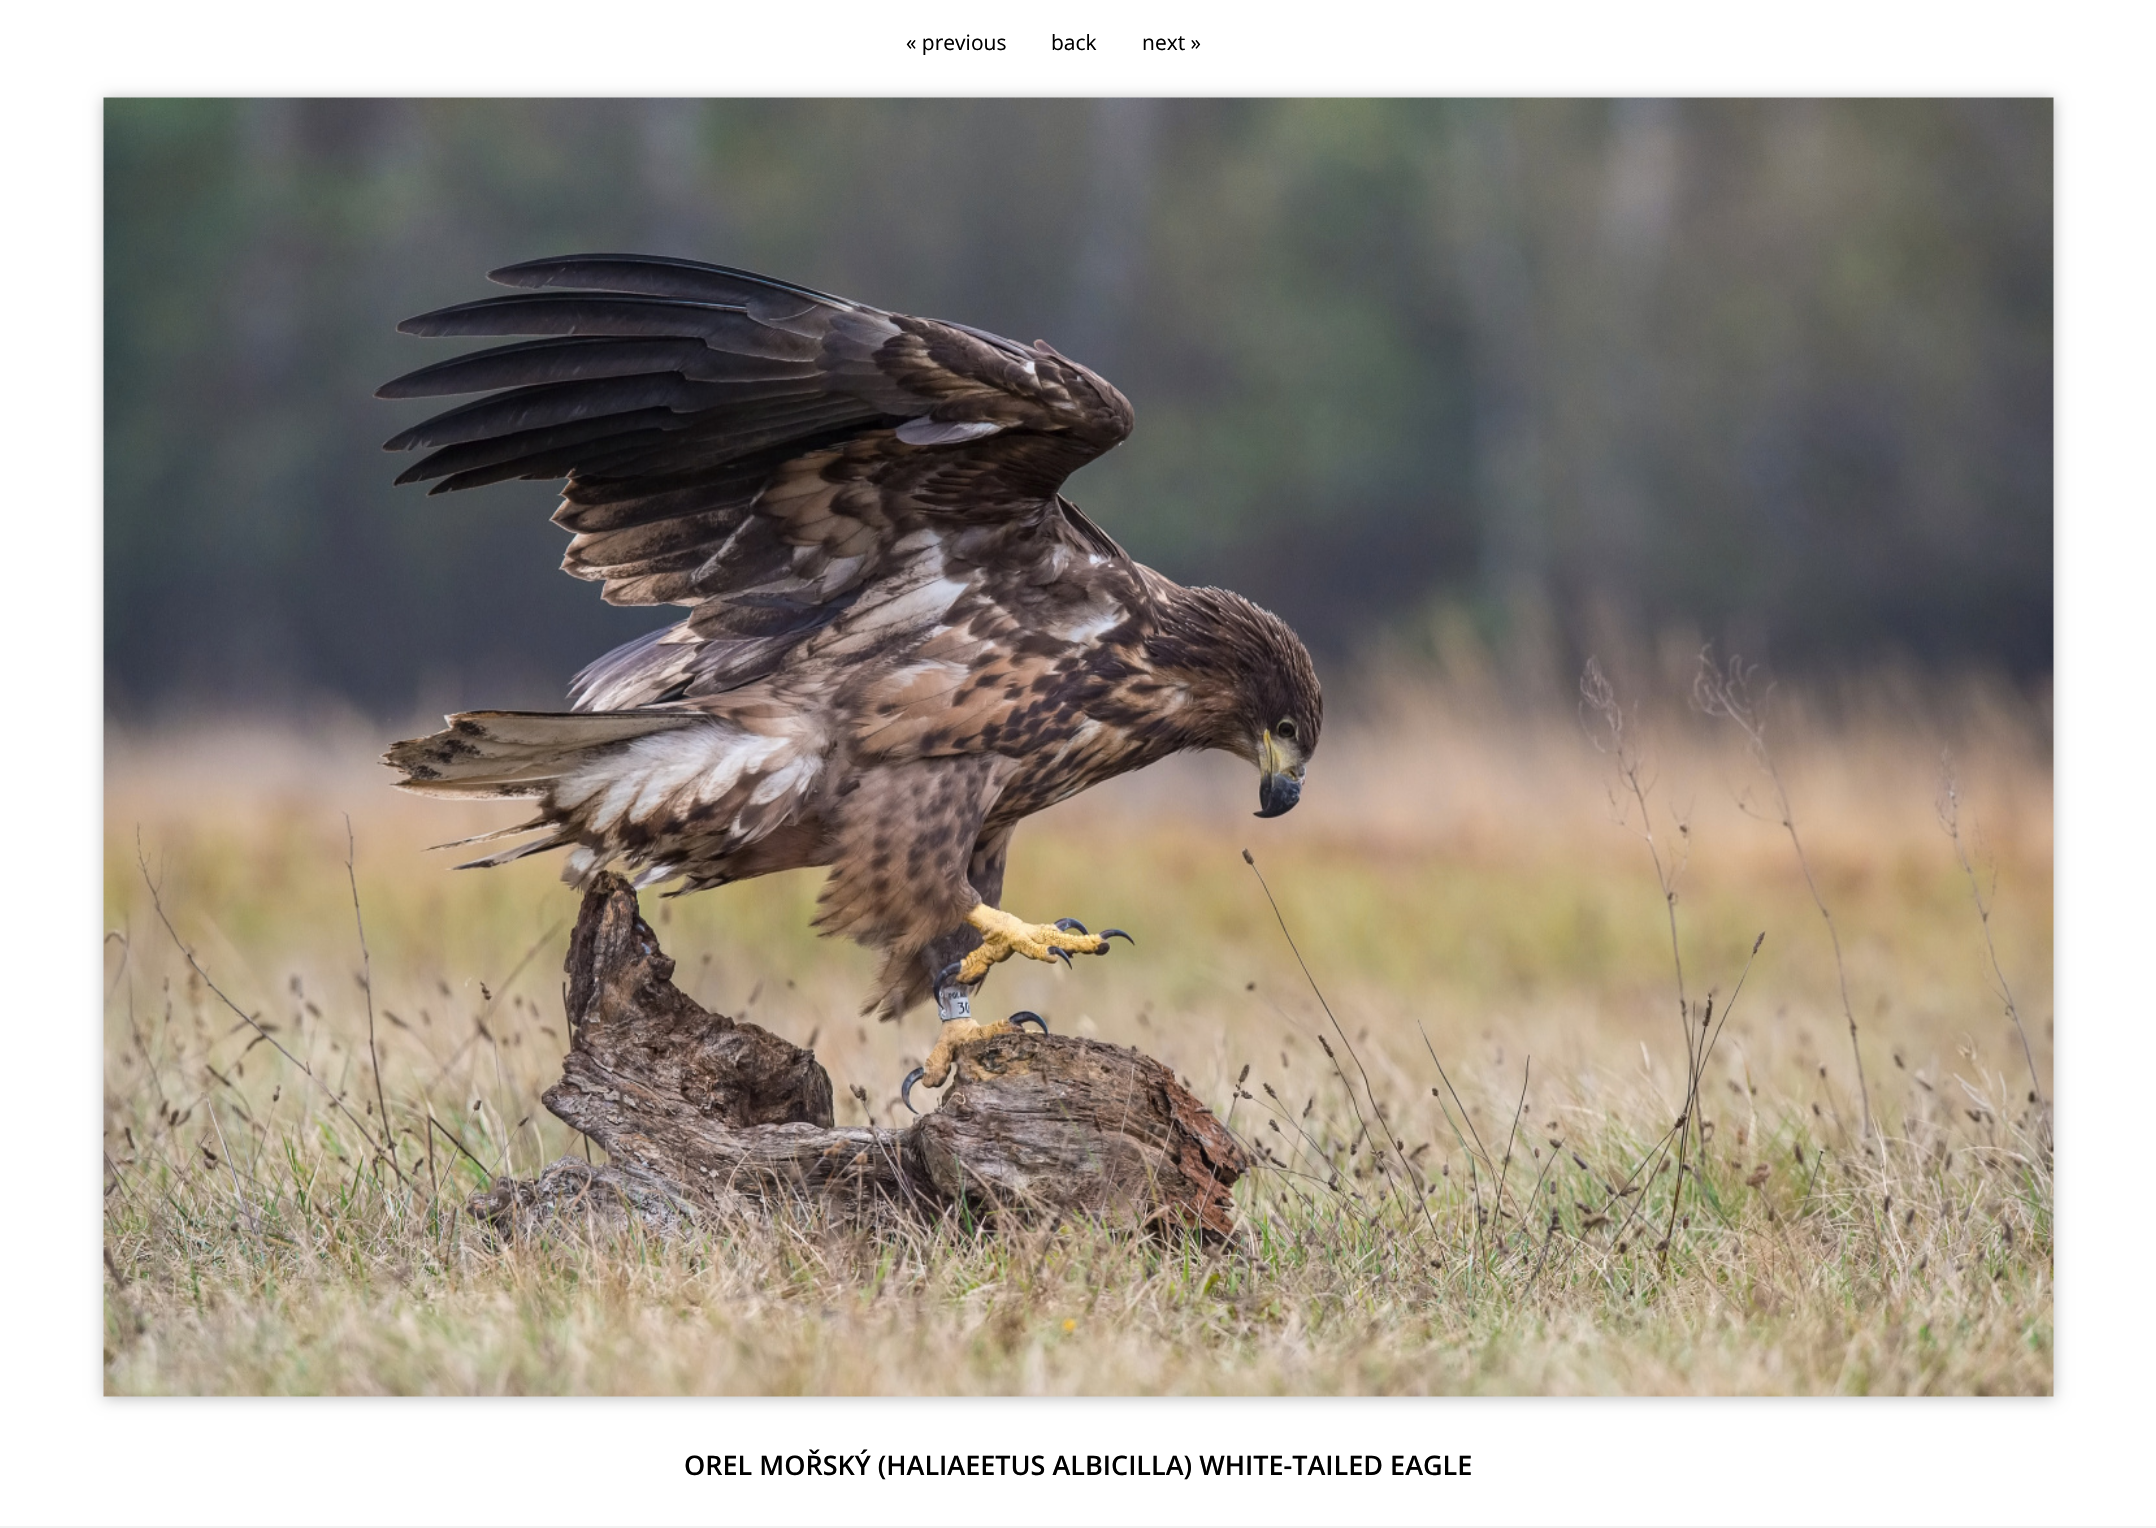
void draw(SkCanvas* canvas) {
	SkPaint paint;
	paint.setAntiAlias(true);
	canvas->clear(0xffffffff);
	SkFont f1(fontMgr->matchFamilyStyle("Open Sans", SkFontStyle::Normal()), 21);
	f1.setSubpixel(true);
	paint.setColor(0xff000000);
	canvas->drawString("« previous", 906, 50, f1, paint);
	canvas->drawString("back", 1051, 50, f1, paint);
	canvas->drawString("next »", 1142, 50, f1, paint);
	paint.setColor(0xffb7b7b7);
	paint.setMaskFilter(SkMaskFilter::MakeBlur(kNormal_SkBlurStyle, 7.5));
	canvas->drawRect(SkRect::MakeXYWH(104, 99, 1950, 1299), paint);
	paint.setMaskFilter(nullptr);
	canvas->drawImageRect(SkImages::DeferredFromEncodedData(SkData::MakeFromFileName("img1.png")), SkRect::MakeXYWH(103, 97, 1951, 1300), SkSamplingOptions());
	SkFont f2(fontMgr->matchFamilyStyle("Open Sans", SkFontStyle(600, SkFontStyle::kNormal_Width, SkFontStyle::kUpright_Slant)), 27);
	f2.setSubpixel(true);
	paint.setColor(0xff000000);
	canvas->drawString("OREL MOŘSKÝ (HALIAEETUS ALBICILLA) WHITE-TAILED EAGLE", 684, 1475, f2, paint);
	paint.setColor(0xfff2f2f2);
	canvas->drawRect(SkRect::MakeXYWH(0, 1526, 2156, 2), paint);
}
